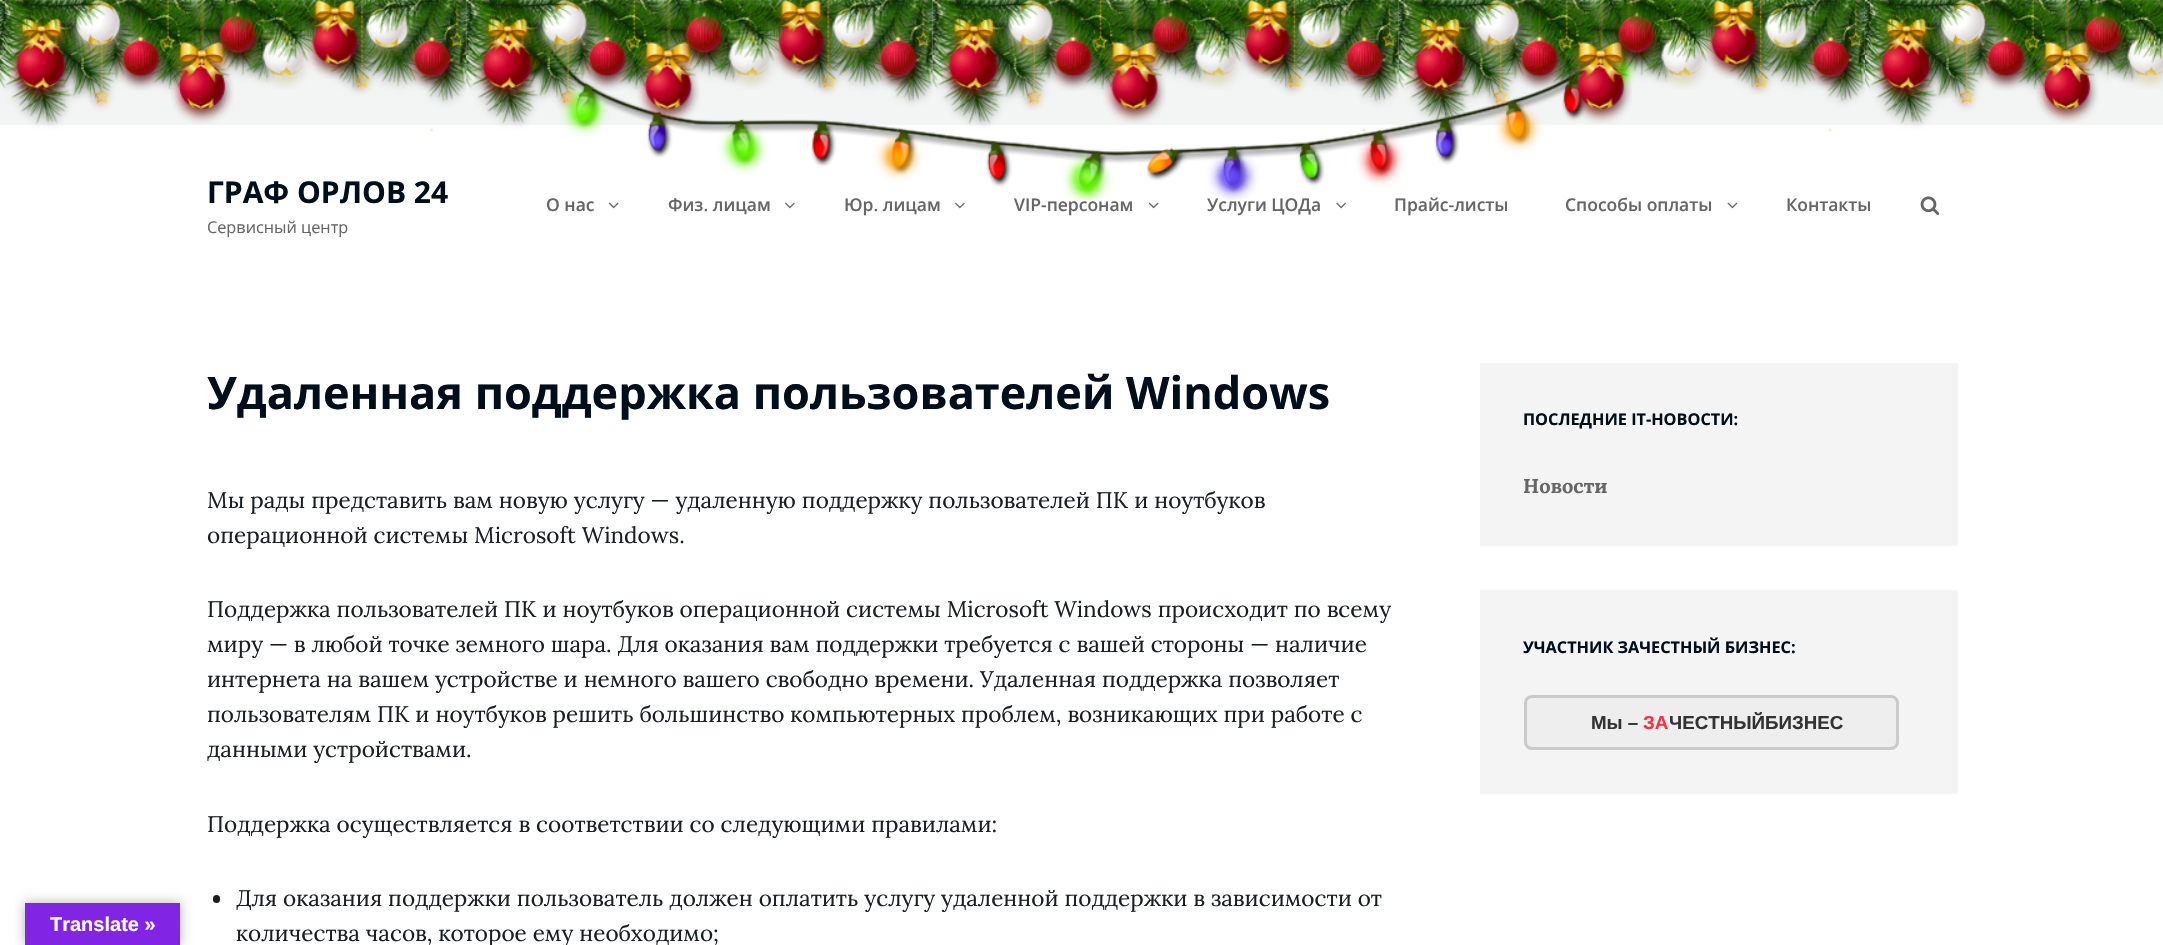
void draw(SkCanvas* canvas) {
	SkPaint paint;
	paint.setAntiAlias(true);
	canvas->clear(0xfff3f5f5);
	paint.setColor(0xffffffff);
	canvas->drawRect(SkRect::MakeXYWH(0, 125, 2163, 820), paint);
	SkFont f1(fontMgr->matchFamilyStyle("Open Sans", SkFontStyle(600, SkFontStyle::kNormal_Width, SkFontStyle::kUpright_Slant)), 17.5);
	f1.setSubpixel(true);
	paint.setColor(0xff666666);
	canvas->drawString("О нас", 546, 211, f1, paint);
	canvas->drawString("Физ. лицам", 668, 211, f1, paint);
	canvas->drawString("Юр. лицам", 844, 211, f1, paint);
	canvas->drawString("VIP-персонам", 1014, 211, f1, paint);
	canvas->drawString("Услуги ЦОДа", 1207, 211, f1, paint);
	canvas->drawString("Прайс-листы", 1394, 211, f1, paint);
	canvas->drawString("Способы оплаты", 1565, 211, f1, paint);
	canvas->drawImageRect(SkImages::DeferredFromEncodedData(SkData::MakeFromFileName("img72.png")), SkRect::MakeXYWH(485, 0, 1180, 200), SkSamplingOptions());
	canvas->drawImageRect(SkImages::DeferredFromEncodedData(SkData::MakeFromFileName("img1.png")), SkRect::MakeXYWH(0, 0, 2163, 132), SkSamplingOptions());
	canvas->drawImageRect(SkImages::DeferredFromEncodedData(SkData::MakeFromFileName("img3.png")), SkRect::MakeXYWH(8, 0, 65, 102), SkSamplingOptions());
	canvas->drawImageRect(SkImages::DeferredFromEncodedData(SkData::MakeFromFileName("img2.png")), SkRect::MakeXYWH(0, 0, 32, 89), SkSamplingOptions());
	canvas->drawImageRect(SkImages::DeferredFromEncodedData(SkData::MakeFromFileName("img5.png")), SkRect::MakeXYWH(67, 0, 62, 58), SkSamplingOptions());
	canvas->drawImageRect(SkImages::DeferredFromEncodedData(SkData::MakeFromFileName("img4.png")), SkRect::MakeXYWH(31, 0, 76, 33), SkSamplingOptions());
	canvas->drawImageRect(SkImages::DeferredFromEncodedData(SkData::MakeFromFileName("img6.png")), SkRect::MakeXYWH(171, 0, 63, 124), SkSamplingOptions());
	canvas->drawImageRect(SkImages::DeferredFromEncodedData(SkData::MakeFromFileName("img7.png")), SkRect::MakeXYWH(212, 0, 51, 67), SkSamplingOptions());
	canvas->drawImageRect(SkImages::DeferredFromEncodedData(SkData::MakeFromFileName("img13.png")), SkRect::MakeXYWH(255, 7, 56, 83), SkSamplingOptions());
	canvas->drawImageRect(SkImages::DeferredFromEncodedData(SkData::MakeFromFileName("img8.png")), SkRect::MakeXYWH(221, 0, 36, 38), SkSamplingOptions());
	canvas->drawImageRect(SkImages::DeferredFromEncodedData(SkData::MakeFromFileName("img10.png")), SkRect::MakeXYWH(304, 0, 61, 79), SkSamplingOptions());
	canvas->drawImageRect(SkImages::DeferredFromEncodedData(SkData::MakeFromFileName("img9.png")), SkRect::MakeXYWH(256, 0, 64, 63), SkSamplingOptions());
	canvas->drawImageRect(SkImages::DeferredFromEncodedData(SkData::MakeFromFileName("img11.png")), SkRect::MakeXYWH(359, 0, 57, 61), SkSamplingOptions());
	canvas->drawImageRect(SkImages::DeferredFromEncodedData(SkData::MakeFromFileName("img12.png")), SkRect::MakeXYWH(115, 11, 51, 80), SkSamplingOptions());
	canvas->drawImageRect(SkImages::DeferredFromEncodedData(SkData::MakeFromFileName("img16.png")), SkRect::MakeXYWH(406, 12, 52, 79), SkSamplingOptions());
	canvas->drawImageRect(SkImages::DeferredFromEncodedData(SkData::MakeFromFileName("img14.png")), SkRect::MakeXYWH(361, 0, 98, 35), SkSamplingOptions());
	canvas->drawImageRect(SkImages::DeferredFromEncodedData(SkData::MakeFromFileName("img15.png")), SkRect::MakeXYWH(458, 0, 9, 86), SkSamplingOptions());
	canvas->drawImageRect(SkImages::DeferredFromEncodedData(SkData::MakeFromFileName("img18.png")), SkRect::MakeXYWH(474, 0, 65, 102), SkSamplingOptions());
	canvas->drawImageRect(SkImages::DeferredFromEncodedData(SkData::MakeFromFileName("img17.png")), SkRect::MakeXYWH(466, 0, 33, 89), SkSamplingOptions());
	canvas->drawImageRect(SkImages::DeferredFromEncodedData(SkData::MakeFromFileName("img20.png")), SkRect::MakeXYWH(534, 0, 61, 59), SkSamplingOptions());
	canvas->drawImageRect(SkImages::DeferredFromEncodedData(SkData::MakeFromFileName("img19.png")), SkRect::MakeXYWH(497, 0, 77, 34), SkSamplingOptions());
	canvas->drawImageRect(SkImages::DeferredFromEncodedData(SkData::MakeFromFileName("img21.png")), SkRect::MakeXYWH(637, 0, 63, 124), SkSamplingOptions());
	canvas->drawImageRect(SkImages::DeferredFromEncodedData(SkData::MakeFromFileName("img22.png")), SkRect::MakeXYWH(678, 0, 51, 67), SkSamplingOptions());
	canvas->drawImageRect(SkImages::DeferredFromEncodedData(SkData::MakeFromFileName("img28.png")), SkRect::MakeXYWH(722, 7, 56, 83), SkSamplingOptions());
	canvas->drawImageRect(SkImages::DeferredFromEncodedData(SkData::MakeFromFileName("img23.png")), SkRect::MakeXYWH(687, 0, 36, 38), SkSamplingOptions());
	canvas->drawImageRect(SkImages::DeferredFromEncodedData(SkData::MakeFromFileName("img25.png")), SkRect::MakeXYWH(771, 0, 60, 79), SkSamplingOptions());
	canvas->drawImageRect(SkImages::DeferredFromEncodedData(SkData::MakeFromFileName("img24.png")), SkRect::MakeXYWH(722, 0, 64, 63), SkSamplingOptions());
	canvas->drawImageRect(SkImages::DeferredFromEncodedData(SkData::MakeFromFileName("img26.png")), SkRect::MakeXYWH(825, 0, 57, 61), SkSamplingOptions());
	canvas->drawImageRect(SkImages::DeferredFromEncodedData(SkData::MakeFromFileName("img27.png")), SkRect::MakeXYWH(581, 11, 51, 80), SkSamplingOptions());
	canvas->drawImageRect(SkImages::DeferredFromEncodedData(SkData::MakeFromFileName("img31.png")), SkRect::MakeXYWH(873, 12, 51, 79), SkSamplingOptions());
	canvas->drawImageRect(SkImages::DeferredFromEncodedData(SkData::MakeFromFileName("img29.png")), SkRect::MakeXYWH(827, 0, 99, 35), SkSamplingOptions());
	canvas->drawImageRect(SkImages::DeferredFromEncodedData(SkData::MakeFromFileName("img30.png")), SkRect::MakeXYWH(924, 0, 9, 86), SkSamplingOptions());
	canvas->drawImageRect(SkImages::DeferredFromEncodedData(SkData::MakeFromFileName("img33.png")), SkRect::MakeXYWH(941, 0, 64, 102), SkSamplingOptions());
	canvas->drawImageRect(SkImages::DeferredFromEncodedData(SkData::MakeFromFileName("img32.png")), SkRect::MakeXYWH(932, 0, 33, 89), SkSamplingOptions());
	canvas->drawImageRect(SkImages::DeferredFromEncodedData(SkData::MakeFromFileName("img35.png")), SkRect::MakeXYWH(1000, 0, 61, 58), SkSamplingOptions());
	canvas->drawImageRect(SkImages::DeferredFromEncodedData(SkData::MakeFromFileName("img34.png")), SkRect::MakeXYWH(963, 0, 77, 33), SkSamplingOptions());
	canvas->drawImageRect(SkImages::DeferredFromEncodedData(SkData::MakeFromFileName("img36.png")), SkRect::MakeXYWH(1103, 0, 63, 124), SkSamplingOptions());
	canvas->drawImageRect(SkImages::DeferredFromEncodedData(SkData::MakeFromFileName("img37.png")), SkRect::MakeXYWH(1145, 0, 51, 67), SkSamplingOptions());
	canvas->drawImageRect(SkImages::DeferredFromEncodedData(SkData::MakeFromFileName("img43.png")), SkRect::MakeXYWH(1188, 7, 56, 83), SkSamplingOptions());
	canvas->drawImageRect(SkImages::DeferredFromEncodedData(SkData::MakeFromFileName("img38.png")), SkRect::MakeXYWH(1153, 0, 37, 39), SkSamplingOptions());
	canvas->drawImageRect(SkImages::DeferredFromEncodedData(SkData::MakeFromFileName("img40.png")), SkRect::MakeXYWH(1237, 0, 61, 79), SkSamplingOptions());
	canvas->drawImageRect(SkImages::DeferredFromEncodedData(SkData::MakeFromFileName("img39.png")), SkRect::MakeXYWH(1188, 0, 64, 63), SkSamplingOptions());
	canvas->drawImageRect(SkImages::DeferredFromEncodedData(SkData::MakeFromFileName("img41.png")), SkRect::MakeXYWH(1292, 0, 57, 61), SkSamplingOptions());
	canvas->drawImageRect(SkImages::DeferredFromEncodedData(SkData::MakeFromFileName("img42.png")), SkRect::MakeXYWH(1047, 11, 51, 80), SkSamplingOptions());
	canvas->drawImageRect(SkImages::DeferredFromEncodedData(SkData::MakeFromFileName("img46.png")), SkRect::MakeXYWH(1339, 12, 51, 79), SkSamplingOptions());
	canvas->drawImageRect(SkImages::DeferredFromEncodedData(SkData::MakeFromFileName("img44.png")), SkRect::MakeXYWH(1294, 0, 98, 35), SkSamplingOptions());
	canvas->drawImageRect(SkImages::DeferredFromEncodedData(SkData::MakeFromFileName("img45.png")), SkRect::MakeXYWH(1390, 0, 9, 86), SkSamplingOptions());
	canvas->drawImageRect(SkImages::DeferredFromEncodedData(SkData::MakeFromFileName("img48.png")), SkRect::MakeXYWH(1407, 0, 65, 102), SkSamplingOptions());
	canvas->drawImageRect(SkImages::DeferredFromEncodedData(SkData::MakeFromFileName("img47.png")), SkRect::MakeXYWH(1398, 0, 33, 89), SkSamplingOptions());
	canvas->drawImageRect(SkImages::DeferredFromEncodedData(SkData::MakeFromFileName("img50.png")), SkRect::MakeXYWH(1466, 0, 61, 58), SkSamplingOptions());
	canvas->drawImageRect(SkImages::DeferredFromEncodedData(SkData::MakeFromFileName("img49.png")), SkRect::MakeXYWH(1429, 0, 77, 33), SkSamplingOptions());
	canvas->drawImageRect(SkImages::DeferredFromEncodedData(SkData::MakeFromFileName("img51.png")), SkRect::MakeXYWH(1570, 0, 62, 124), SkSamplingOptions());
	canvas->drawImageRect(SkImages::DeferredFromEncodedData(SkData::MakeFromFileName("img52.png")), SkRect::MakeXYWH(1611, 0, 51, 67), SkSamplingOptions());
	canvas->drawImageRect(SkImages::DeferredFromEncodedData(SkData::MakeFromFileName("img58.png")), SkRect::MakeXYWH(1654, 7, 56, 83), SkSamplingOptions());
	canvas->drawImageRect(SkImages::DeferredFromEncodedData(SkData::MakeFromFileName("img53.png")), SkRect::MakeXYWH(1620, 0, 36, 38), SkSamplingOptions());
	canvas->drawImageRect(SkImages::DeferredFromEncodedData(SkData::MakeFromFileName("img55.png")), SkRect::MakeXYWH(1703, 0, 61, 79), SkSamplingOptions());
	canvas->drawImageRect(SkImages::DeferredFromEncodedData(SkData::MakeFromFileName("img54.png")), SkRect::MakeXYWH(1655, 0, 63, 63), SkSamplingOptions());
	canvas->drawImageRect(SkImages::DeferredFromEncodedData(SkData::MakeFromFileName("img56.png")), SkRect::MakeXYWH(1758, 0, 57, 61), SkSamplingOptions());
	canvas->drawImageRect(SkImages::DeferredFromEncodedData(SkData::MakeFromFileName("img57.png")), SkRect::MakeXYWH(1514, 11, 51, 80), SkSamplingOptions());
	canvas->drawImageRect(SkImages::DeferredFromEncodedData(SkData::MakeFromFileName("img61.png")), SkRect::MakeXYWH(1805, 12, 52, 79), SkSamplingOptions());
	canvas->drawImageRect(SkImages::DeferredFromEncodedData(SkData::MakeFromFileName("img59.png")), SkRect::MakeXYWH(1760, 0, 98, 35), SkSamplingOptions());
	canvas->drawImageRect(SkImages::DeferredFromEncodedData(SkData::MakeFromFileName("img60.png")), SkRect::MakeXYWH(1857, 0, 8, 86), SkSamplingOptions());
	canvas->drawImageRect(SkImages::DeferredFromEncodedData(SkData::MakeFromFileName("img63.png")), SkRect::MakeXYWH(1873, 0, 65, 102), SkSamplingOptions());
	canvas->drawImageRect(SkImages::DeferredFromEncodedData(SkData::MakeFromFileName("img62.png")), SkRect::MakeXYWH(1865, 0, 32, 89), SkSamplingOptions());
	canvas->drawImageRect(SkImages::DeferredFromEncodedData(SkData::MakeFromFileName("img65.png")), SkRect::MakeXYWH(1932, 0, 62, 58), SkSamplingOptions());
	canvas->drawImageRect(SkImages::DeferredFromEncodedData(SkData::MakeFromFileName("img64.png")), SkRect::MakeXYWH(1896, 0, 76, 33), SkSamplingOptions());
	canvas->drawImageRect(SkImages::DeferredFromEncodedData(SkData::MakeFromFileName("img66.png")), SkRect::MakeXYWH(2036, 0, 63, 124), SkSamplingOptions());
	canvas->drawImageRect(SkImages::DeferredFromEncodedData(SkData::MakeFromFileName("img67.png")), SkRect::MakeXYWH(2077, 0, 51, 67), SkSamplingOptions());
	canvas->drawImageRect(SkImages::DeferredFromEncodedData(SkData::MakeFromFileName("img71.png")), SkRect::MakeXYWH(2120, 7, 43, 83), SkSamplingOptions());
	canvas->drawImageRect(SkImages::DeferredFromEncodedData(SkData::MakeFromFileName("img68.png")), SkRect::MakeXYWH(2086, 0, 35, 38), SkSamplingOptions());
	canvas->drawImageRect(SkImages::DeferredFromEncodedData(SkData::MakeFromFileName("img69.png")), SkRect::MakeXYWH(2121, 0, 42, 63), SkSamplingOptions());
	canvas->drawImageRect(SkImages::DeferredFromEncodedData(SkData::MakeFromFileName("img70.png")), SkRect::MakeXYWH(1980, 11, 51, 80), SkSamplingOptions());
	SkFont f2(fontMgr->matchFamilyStyle("Open Sans", SkFontStyle::Bold()), 30);
	f2.setSubpixel(true);
	paint.setColor(0xff000e1b);
	canvas->drawString("ГРАФ ОРЛОВ 24", 207, 203, f2, paint);
	SkFont f3(fontMgr->matchFamilyStyle("Open Sans", SkFontStyle::Normal()), 16.25);
	f3.setSubpixel(true);
	paint.setColor(0xff666666);
	canvas->drawString("Сервисный центр", 207, 233, f3, paint);
	canvas->drawImageRect(SkImages::DeferredFromEncodedData(SkData::MakeFromFileName("img73.png")), SkRect::MakeXYWH(608, 202, 11, 7), SkSamplingOptions());
	canvas->drawImageRect(SkImages::DeferredFromEncodedData(SkData::MakeFromFileName("img74.png")), SkRect::MakeXYWH(785, 202, 10, 7), SkSamplingOptions());
	canvas->drawImageRect(SkImages::DeferredFromEncodedData(SkData::MakeFromFileName("img74.png")), SkRect::MakeXYWH(955, 202, 10, 7), SkSamplingOptions());
	canvas->drawImageRect(SkImages::DeferredFromEncodedData(SkData::MakeFromFileName("img73.png")), SkRect::MakeXYWH(1148, 202, 11, 7), SkSamplingOptions());
	canvas->drawImageRect(SkImages::DeferredFromEncodedData(SkData::MakeFromFileName("img75.png")), SkRect::MakeXYWH(1336, 202, 10, 7), SkSamplingOptions());
	canvas->drawImageRect(SkImages::DeferredFromEncodedData(SkData::MakeFromFileName("img76.png")), SkRect::MakeXYWH(1727, 202, 11, 7), SkSamplingOptions());
	canvas->drawString("Контакты", 1786, 211, f1, paint);
	canvas->drawImageRect(SkImages::DeferredFromEncodedData(SkData::MakeFromFileName("img77.png")), SkRect::MakeXYWH(1920, 196, 20, 19), SkSamplingOptions());
	paint.setColor(0x4d000000);
	paint.setMaskFilter(SkMaskFilter::MakeBlur(kNormal_SkBlurStyle, 5.5));
	canvas->drawRect(SkRect::MakeXYWH(25, 903, 155, 42), paint);
	paint.setMaskFilter(nullptr);
	paint.setColor(0xff8224e3);
	canvas->drawRect(SkRect::MakeXYWH(25, 903, 155, 42), paint);
	SkFont f4(fontMgr->matchFamilyStyle("Liberation Sans", SkFontStyle::Bold()), 20);
	f4.setSubpixel(true);
	paint.setColor(0xffffffff);
	canvas->drawString("Translate »", 50, 931, f4, paint);
	SkFont f5(fontMgr->matchFamilyStyle("Open Sans", SkFontStyle::Bold()), 45);
	f5.setSubpixel(true);
	paint.setColor(0xff000e1b);
	canvas->drawString("Удаленная поддержка пользователей Windows", 207, 409, f5, paint);
	SkFont f6(fontMgr->matchFamilyStyle("Lora", SkFontStyle::Normal()), 22.5);
	f6.setSubpixel(true);
	paint.setColor(0xff191e23);
	canvas->drawString("Мы рады представить вам новую услугу — удаленную поддержку пользователей ПК и ноутбуков", 207, 508, f6, paint);
	canvas->drawString("операционной системы Microsoft Windows.", 207, 543, f6, paint);
	canvas->drawString("Поддержка пользователей ПК и ноутбуков операционной системы Microsoft Windows происходит по всему", 207, 617, f6, paint);
	canvas->drawString("миру — в любой точке земного шара. Для оказания вам поддержки требуется с вашей стороны — наличие", 207, 652, f6, paint);
	canvas->drawString("интернета на вашем устройстве и немного вашего свободно времени. Удаленная поддержка позволяет", 207, 687, f6, paint);
	canvas->drawString("пользователям ПК и ноутбуков решить большинство компьютерных проблем, возникающих при работе с", 207, 722, f6, paint);
	canvas->drawString("данными устройствами.", 207, 757, f6, paint);
	canvas->drawString("Поддержка осуществляется в соответствии со следующими правилами:", 207, 832, f6, paint);
	canvas->drawRoundRect(SkRect::MakeXYWH(213, 895, 7, 8), 3.5, 3.5, paint);
	canvas->drawString("Для оказания поддержки пользователь должен оплатить услугу удаленной поддержки в зависимости от", 236, 906, f6, paint);
	canvas->drawString("количества часов, которое ему необходимо;", 236, 941, f6, paint);
	paint.setColor(0xfff4f4f5);
	canvas->drawRect(SkRect::MakeXYWH(1480, 363, 478, 183), paint);
	SkFont f7(fontMgr->matchFamilyStyle("Open Sans", SkFontStyle::Bold()), 16.25);
	f7.setSubpixel(true);
	paint.setColor(0xff000e1b);
	canvas->drawString("ПОСЛЕДНИЕ IT-НОВОСТИ:", 1523, 425, f7, paint);
	SkFont f8(fontMgr->matchFamilyStyle("Lora", SkFontStyle::Bold()), 20);
	f8.setSubpixel(true);
	paint.setColor(0xff666666);
	canvas->drawString("Новости", 1523, 493, f8, paint);
	paint.setColor(0xfff4f4f5);
	canvas->drawRect(SkRect::MakeXYWH(1480, 590, 478, 204), paint);
	paint.setColor(0xff000e1b);
	canvas->drawString("УЧАСТНИК ЗАЧЕСТНЫЙ БИЗНЕС:", 1523, 653, f7, paint);
	paint.setColor(0xffeeeeee);
	canvas->drawRoundRect(SkRect::MakeXYWH(1525.5, 696.5, 372, 52), 6.5, 6.5, paint);
	paint.setStroke(true);
	paint.setStrokeWidth(3);
	paint.setColor(0xffcacaca);
	canvas->drawRoundRect(SkRect::MakeXYWH(1525.5, 696.5, 372, 52), 6.5, 6.5, paint);
	SkFont f9(fontMgr->matchFamilyStyle("Liberation Sans", SkFontStyle::Bold()), 18.75);
	f9.setSubpixel(true);
	paint.setStroke(false);
	paint.setColor(0xff333333);
	canvas->drawString("Мы –", 1591, 729, f9, paint);
	paint.setColor(0xffff2e40);
	canvas->drawString("ЗА", 1643, 729, f9, paint);
	paint.setColor(0xff333333);
	canvas->drawString("ЧЕСТНЫЙБИЗНЕС", 1669, 729, f9, paint);
}
